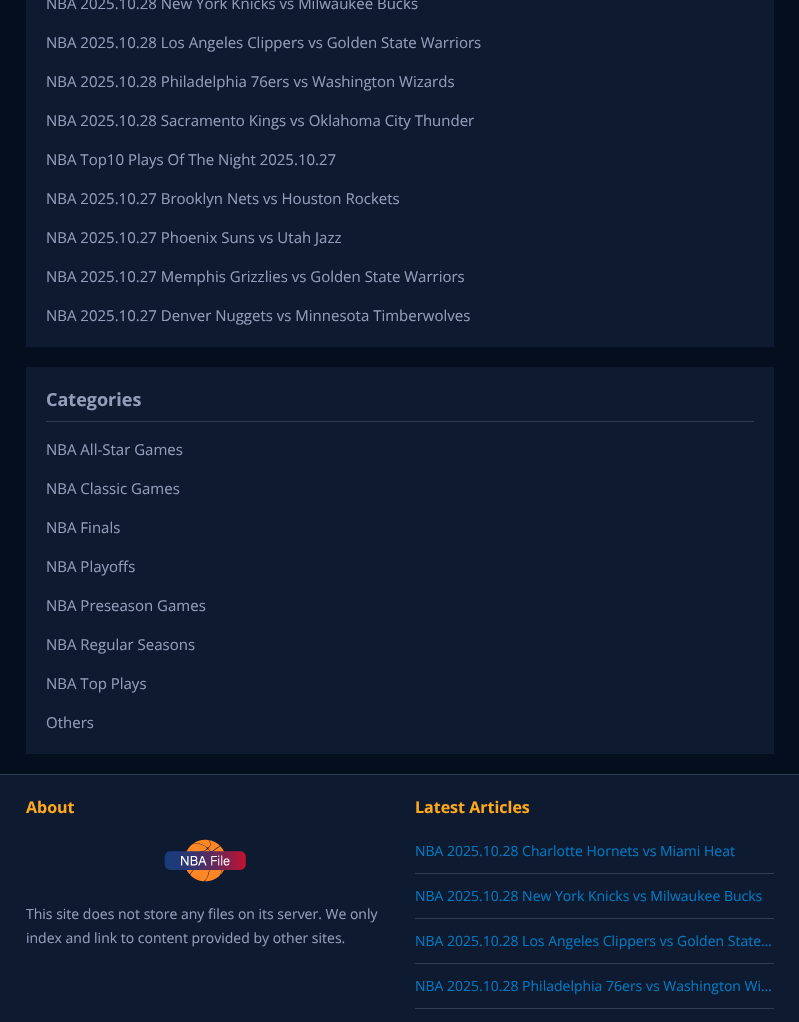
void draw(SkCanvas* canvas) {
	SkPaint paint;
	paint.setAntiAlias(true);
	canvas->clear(0xff050e1e);
	paint.setColor(0xff0e1a2f);
	canvas->drawRect(SkRect::MakeXYWH(26, 0, 748, 347), paint);
	SkFont f1(fontMgr->matchFamilyStyle("Open Sans", SkFontStyle::Normal()), 15);
	f1.setSubpixel(true);
	paint.setColor(0xff909eb9);
	canvas->drawString("NBA 2025.10.28 New York Knicks vs Milwaukee Bucks", 46, 9, f1, paint);
	canvas->drawString("NBA 2025.10.28 Los Angeles Clippers vs Golden State Warriors", 46, 48, f1, paint);
	canvas->drawString("NBA 2025.10.28 Philadelphia 76ers vs Washington Wizards", 46, 87, f1, paint);
	canvas->drawString("NBA 2025.10.28 Sacramento Kings vs Oklahoma City Thunder", 46, 126, f1, paint);
	canvas->drawString("NBA Top10 Plays Of The Night 2025.10.27", 46, 165, f1, paint);
	canvas->drawString("NBA 2025.10.27 Brooklyn Nets vs Houston Rockets", 46, 204, f1, paint);
	canvas->drawString("NBA 2025.10.27 Phoenix Suns vs Utah Jazz", 46, 243, f1, paint);
	canvas->drawString("NBA 2025.10.27 Memphis Grizzlies vs Golden State Warriors", 46, 282, f1, paint);
	canvas->drawString("NBA 2025.10.27 Denver Nuggets vs Minnesota Timberwolves", 46, 321, f1, paint);
	paint.setColor(0xff0e1a2f);
	canvas->drawRect(SkRect::MakeXYWH(26, 367, 748, 387), paint);
	paint.setColor(0xff303c52);
	canvas->drawRect(SkRect::MakeXYWH(46, 421, 708, 1), paint);
	SkFont f2(fontMgr->matchFamilyStyle("Open Sans", SkFontStyle::Bold()), 18);
	f2.setSubpixel(true);
	paint.setColor(0xff909eb9);
	canvas->drawString("Categories", 46, 406, f2, paint);
	canvas->drawString("NBA All-Star Games", 46, 455, f1, paint);
	canvas->drawString("NBA Classic Games", 46, 494, f1, paint);
	canvas->drawString("NBA Finals", 46, 533, f1, paint);
	canvas->drawString("NBA Playoffs", 46, 572, f1, paint);
	canvas->drawString("NBA Preseason Games", 46, 611, f1, paint);
	canvas->drawString("NBA Regular Seasons", 46, 650, f1, paint);
	canvas->drawString("NBA Top Plays", 46, 689, f1, paint);
	canvas->drawString("Others", 46, 728, f1, paint);
	paint.setColor(0xff0e1a2f);
	canvas->drawRect(SkRect::MakeXYWH(0, 775, 799, 247), paint);
	paint.setColor(0xff303c52);
	canvas->drawRect(SkRect::MakeXYWH(0, 774, 799, 1), paint);
	SkFont f3(fontMgr->matchFamilyStyle("Open Sans", SkFontStyle::Bold()), 16);
	f3.setSubpixel(true);
	paint.setColor(0xffffa81a);
	canvas->drawString("About", 26, 813, f3, paint);
	canvas->drawImageRect(SkImages::DeferredFromEncodedData(SkData::MakeFromFileName("img1.png")), SkRect::MakeXYWH(164, 839, 82, 43), SkSamplingOptions());
	SkFont f4(fontMgr->matchFamilyStyle("Open Sans", SkFontStyle::Normal()), 14);
	f4.setSubpixel(true);
	paint.setColor(0xff909eb9);
	canvas->drawString("This site does not store any files on its server. We only", 26, 919, f4, paint);
	canvas->drawString("index and link to content provided by other sites.", 26, 943, f4, paint);
	paint.setColor(0xffffa81a);
	canvas->drawString("Latest Articles", 415, 813, f3, paint);
	paint.setColor(0xff303c52);
	canvas->drawRect(SkRect::MakeXYWH(415, 873, 359, 1), paint);
	paint.setColor(0xff0079c1);
	canvas->drawString("NBA 2025.10.28 Charlotte Hornets vs Miami Heat", 415, 856, f4, paint);
	paint.setColor(0xff303c52);
	canvas->drawRect(SkRect::MakeXYWH(415, 918, 359, 1), paint);
	paint.setColor(0xff0079c1);
	canvas->drawString("NBA 2025.10.28 New York Knicks vs Milwaukee Bucks", 415, 901, f4, paint);
	paint.setColor(0xff303c52);
	canvas->drawRect(SkRect::MakeXYWH(415, 963, 359, 1), paint);
	paint.setColor(0xff0079c1);
	canvas->drawString("NBA 2025.10.28 Los Angeles Clippers vs Golden State…", 415, 946, f4, paint);
	paint.setColor(0xff303c52);
	canvas->drawRect(SkRect::MakeXYWH(415, 1008, 359, 1), paint);
	paint.setColor(0xff0079c1);
	canvas->drawString("NBA 2025.10.28 Philadelphia 76ers vs Washington Wi…", 415, 991, f4, paint);
}
